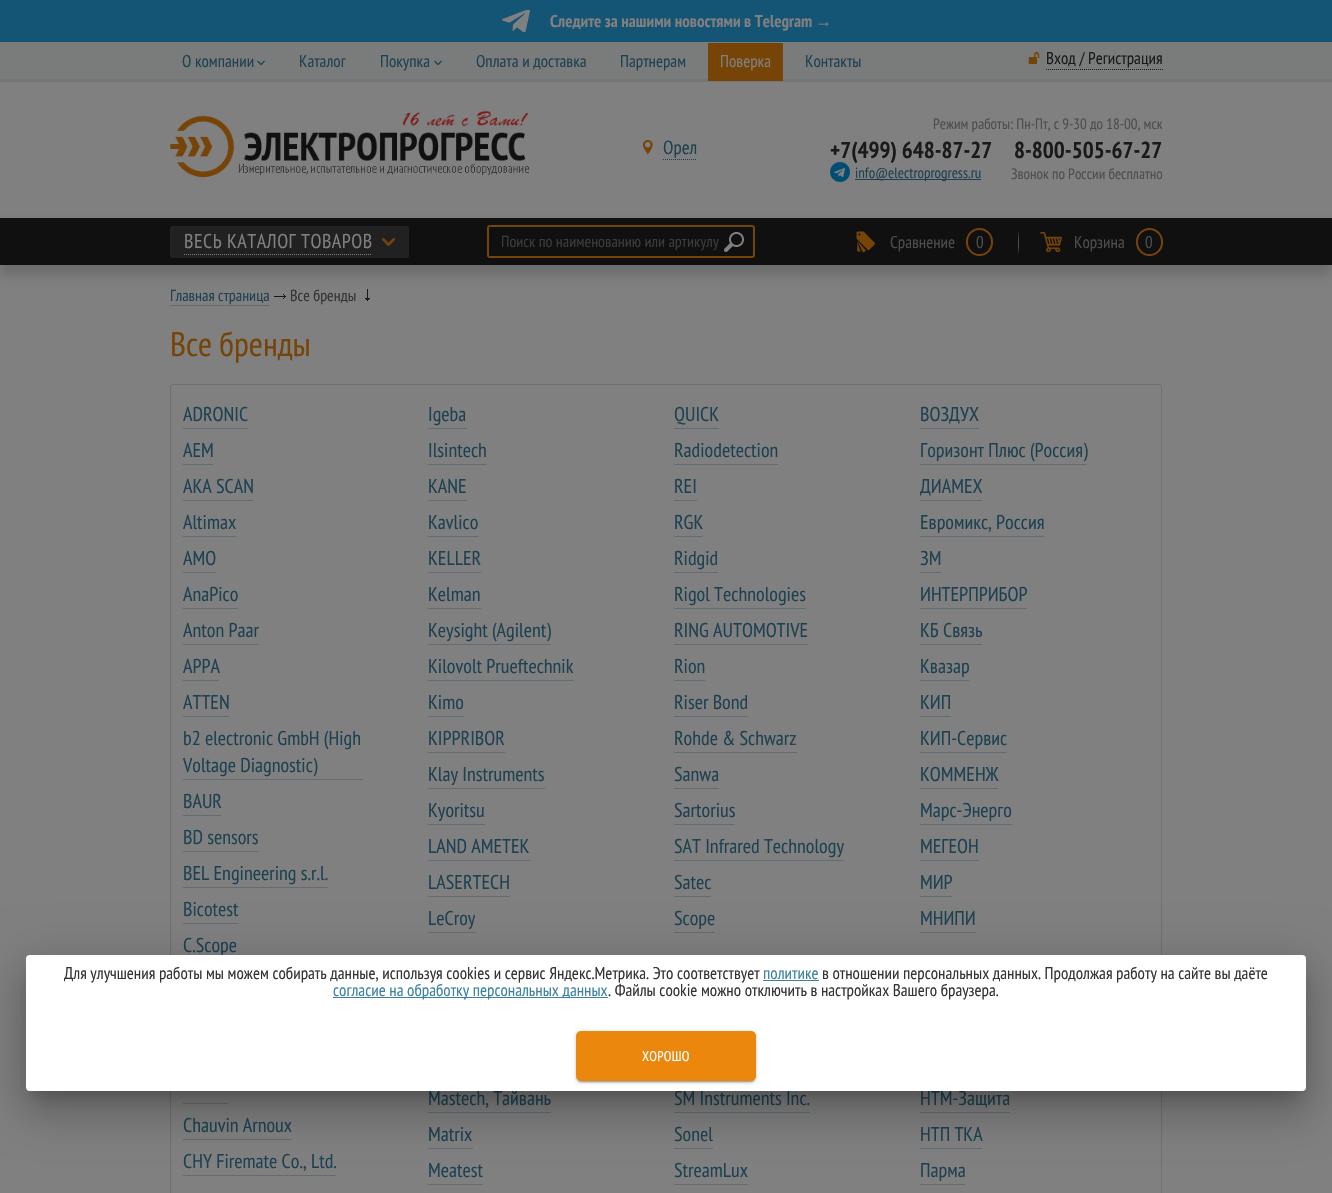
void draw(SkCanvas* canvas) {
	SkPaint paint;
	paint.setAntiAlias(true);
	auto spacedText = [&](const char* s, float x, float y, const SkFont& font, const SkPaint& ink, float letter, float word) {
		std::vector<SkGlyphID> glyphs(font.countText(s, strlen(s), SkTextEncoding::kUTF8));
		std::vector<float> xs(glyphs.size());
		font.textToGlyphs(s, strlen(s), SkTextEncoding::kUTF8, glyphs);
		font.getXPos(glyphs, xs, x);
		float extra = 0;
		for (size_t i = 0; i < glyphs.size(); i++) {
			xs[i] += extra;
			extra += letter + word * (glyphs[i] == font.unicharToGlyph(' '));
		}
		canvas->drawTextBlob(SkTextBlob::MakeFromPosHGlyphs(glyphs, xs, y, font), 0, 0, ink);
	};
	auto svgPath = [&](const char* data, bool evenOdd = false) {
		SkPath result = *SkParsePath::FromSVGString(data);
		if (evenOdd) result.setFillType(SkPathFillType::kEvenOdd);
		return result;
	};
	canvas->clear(0xff808080);
	paint.setColor(0xff145474);
	canvas->drawRect(SkRect::MakeXYWH(0, 0, 1332, 42), paint);
	canvas->drawImageRect(SkImages::DeferredFromEncodedData(SkData::MakeFromFileName("img1.png")), SkRect::MakeXYWH(502, 10, 28, 22), SkSamplingOptions());
	SkFont f1(fontMgr->matchFamilyStyle("PT Sans Narrow", SkFontStyle::Bold()), 17);
	f1.setSubpixel(true);
	paint.setColor(0xff808080);
	canvas->drawString("Следите за нашими новостями в Telegram", 550, 27, f1, paint);
	SkFont f2(fontMgr->matchFamilyStyle("Liberation Sans", SkFontStyle::Bold()), 17);
	f2.setSubpixel(true);
	canvas->drawString("→", 815, 27, f2, paint);
	paint.setColor(0xff7a7c7c);
	canvas->drawRect(SkRect::MakeXYWH(0, 42, 1332, 37), paint);
	paint.setColor(0xff747676);
	canvas->drawRect(SkRect::MakeXYWH(0, 79, 1332, 3), paint);
	SkFont f3(fontMgr->matchFamilyStyle("PT Sans Narrow", SkFontStyle::Normal()), 17);
	f3.setSubpixel(true);
	paint.setColor(0xff1e4151);
	canvas->drawString("О компании", 182, 67, f3, paint);
	canvas->drawImageRect(SkImages::DeferredFromEncodedData(SkData::MakeFromFileName("img2.png")), SkRect::MakeXYWH(257, 60, 8, 6), SkSamplingOptions());
	canvas->drawString("Каталог", 299, 67, f3, paint);
	canvas->drawString("Покупка", 380, 67, f3, paint);
	canvas->drawImageRect(SkImages::DeferredFromEncodedData(SkData::MakeFromFileName("img2.png")), SkRect::MakeXYWH(434, 60, 8, 6), SkSamplingOptions());
	canvas->drawString("Оплата и доставка", 476, 67, f3, paint);
	canvas->drawString("Партнерам", 620, 67, f3, paint);
	paint.setColor(0xff764407);
	canvas->drawRect(SkRect::MakeXYWH(708, 43, 75, 38), paint);
	paint.setColor(0xff808080);
	canvas->drawString("Поверка", 720, 67, f3, paint);
	paint.setColor(0xff1e4151);
	canvas->drawString("Контакты", 805, 67, f3, paint);
	canvas->drawImageRect(SkImages::DeferredFromEncodedData(SkData::MakeFromFileName("img3.png")), SkRect::MakeXYWH(1028, 52, 12, 12), SkSamplingOptions());
	paint.setColor(0xff1a1a1a);
	canvas->drawString("Вход / Регистрация", 1046, 64, f3, paint);
	paint.setStroke(true);
	paint.setStrokeWidth(1);
	paint.setPathEffect(SkDashPathEffect::Make({{1, 1}}, 0));
	canvas->drawPath(svgPath("M1046 69.5H1163"), paint);
	paint.setPathEffect(nullptr);
	canvas->drawImageRect(SkImages::DeferredFromEncodedData(SkData::MakeFromFileName("img4.png")), SkRect::MakeXYWH(170, 110, 359, 68), SkSamplingOptions());
	canvas->drawImageRect(SkImages::DeferredFromEncodedData(SkData::MakeFromFileName("img5.png")), SkRect::MakeXYWH(643, 140, 10, 15), SkSamplingOptions());
	SkFont f4(fontMgr->matchFamilyStyle("PT Sans Narrow", SkFontStyle::Normal()), 19);
	f4.setSubpixel(true);
	paint.setStroke(false);
	paint.setColor(0xff1e4151);
	canvas->drawString("Орел", 663, 154, f4, paint);
	paint.setStroke(true);
	paint.setPathEffect(SkDashPathEffect::Make({{1, 1}}, 0));
	canvas->drawPath(svgPath("M663 159.5H697"), paint);
	paint.setPathEffect(nullptr);
	SkFont f5(fontMgr->matchFamilyStyle("PT Sans Narrow", SkFontStyle::Normal()), 15);
	f5.setSubpixel(true);
	paint.setStroke(false);
	paint.setColor(0xff4d4d4d);
	canvas->drawString("Режим работы: Пн-Пт, с 9-30 до 18-00, мск", 933, 129, f5, paint);
	SkFont f6(fontMgr->matchFamilyStyle("PT Sans Narrow", SkFontStyle::Bold()), 23);
	f6.setSubpixel(true);
	paint.setColor(0xff1a1a1a);
	canvas->drawString("+7(499) 648-87-27", 830, 158, f6, paint);
	canvas->drawString("8-800-505-67-27", 1014, 158, f6, paint);
	paint.setColor(0xff4d4d4d);
	canvas->drawString("Звонок по России бесплатно", 1011, 179, f5, paint);
	canvas->drawImageRect(SkImages::DeferredFromEncodedData(SkData::MakeFromFileName("img6.png")), SkRect::MakeXYWH(830, 162, 20, 20), SkSamplingOptions());
	paint.setColor(0xff1e4151);
	canvas->drawRect(SkRect::MakeXYWH(855, 179, 126, 1), paint);
	canvas->drawString("info@electroprogress.ru", 855, 178, f5, paint);
	canvas->drawImageRect(SkImages::DeferredFromEncodedData(SkData::MakeFromFileName("img13.png")), SkRect::MakeXYWH(365, 289, 5, 12), SkSamplingOptions());
	paint.setColor(0x26000000);
	paint.setMaskFilter(SkMaskFilter::MakeBlur(kNormal_SkBlurStyle, 5));
	canvas->drawRect(SkRect::MakeXYWH(0, 228, 1332, 47), paint);
	paint.setMaskFilter(nullptr);
	paint.setColor(0xff101010);
	canvas->drawRect(SkRect::MakeXYWH(0, 218, 1332, 47), paint);
	paint.setColor(0xff222121);
	canvas->drawRoundRect(SkRect::MakeXYWH(170, 226, 239, 32), 3, 3, paint);
	canvas->drawImageRect(SkImages::DeferredFromEncodedData(SkData::MakeFromFileName("img7.png")), SkRect::MakeXYWH(382, 238, 13, 8), SkSamplingOptions());
	paint.setStroke(true);
	paint.setStrokeWidth(2);
	paint.setColor(0xff222222);
	canvas->drawRoundRect(SkRect::MakeXYWH(171, 227, 237, 30), 2, 2, paint);
	SkFont f7(fontMgr->matchFamilyStyle("PT Sans Narrow", SkFontStyle::Normal()), 20);
	f7.setSubpixel(true);
	paint.setStroke(false);
	paint.setColor(0xff808080);
	spacedText("ВЕСЬ КАТАЛОГ ТОВАРОВ", 184, 248, f7, paint, 0.5, 0);
	paint.setStroke(true);
	paint.setStrokeWidth(1);
	paint.setPathEffect(SkDashPathEffect::Make({{1, 1}}, 0));
	canvas->drawPath(svgPath("M184 254.5H372"), paint);
	paint.setPathEffect(nullptr);
	paint.setStrokeWidth(2);
	paint.setColor(0xff764407);
	canvas->drawRoundRect(SkRect::MakeXYWH(488, 226, 266, 31), 2, 2, paint);
	SkFont f8(fontMgr->matchFamilyStyle("PT Sans Narrow", SkFontStyle::Normal()), 16);
	f8.setSubpixel(true);
	paint.setStroke(false);
	paint.setColor(0xff3b3b3b);
	canvas->drawString("Поиск по наименованию или артикулу", 501, 247, f8, paint);
	canvas->drawImageRect(SkImages::DeferredFromEncodedData(SkData::MakeFromFileName("img8.png")), SkRect::MakeXYWH(724, 232, 20, 20), SkSamplingOptions());
	canvas->drawImageRect(SkImages::DeferredFromEncodedData(SkData::MakeFromFileName("img9.png")), SkRect::MakeXYWH(856, 231, 20, 22), SkSamplingOptions());
	paint.setColor(0xff4d4d4d);
	canvas->drawString("Сравнение", 890, 248, f3, paint);
	paint.setStroke(true);
	paint.setColor(0xff764407);
	canvas->drawRoundRect(SkRect::MakeXYWH(967, 229, 25, 26), 12.5, 12.5, paint);
	paint.setStroke(false);
	paint.setColor(0xff4d4d4d);
	canvas->drawString("0", 976, 248, f3, paint);
	canvas->drawImageRect(SkImages::DeferredFromEncodedData(SkData::MakeFromFileName("img10.png")), SkRect::MakeXYWH(1018, 231, 1, 22), SkSamplingOptions());
	canvas->drawImageRect(SkImages::DeferredFromEncodedData(SkData::MakeFromFileName("img11.png")), SkRect::MakeXYWH(1040, 232, 22, 20), SkSamplingOptions());
	canvas->drawString("Корзина", 1074, 248, f3, paint);
	paint.setStroke(true);
	paint.setColor(0xff764407);
	canvas->drawRoundRect(SkRect::MakeXYWH(1137, 229, 25, 26), 12.5, 12.5, paint);
	paint.setStroke(false);
	paint.setColor(0xff4d4d4d);
	canvas->drawString("0", 1145, 248, f3, paint);
	paint.setColor(0xff1e4151);
	canvas->drawString("Главная страница", 170, 301, f8, paint);
	paint.setColor(0xff626c71);
	canvas->drawRect(SkRect::MakeXYWH(170, 305, 99, 1), paint);
	canvas->drawImageRect(SkImages::DeferredFromEncodedData(SkData::MakeFromFileName("img12.png")), SkRect::MakeXYWH(274, 294, 12, 5), SkSamplingOptions());
	paint.setColor(0xff333333);
	canvas->drawString("Все бренды", 290, 301, f8, paint);
	SkFont f9(fontMgr->matchFamilyStyle("PT Sans Narrow", SkFontStyle::Normal()), 34);
	f9.setSubpixel(true);
	paint.setColor(0xff764407);
	canvas->drawString("Все бренды", 170, 356, f9, paint);
	paint.setStroke(true);
	paint.setStrokeWidth(1);
	paint.setColor(0xff6f6f6f);
	canvas->drawRoundRect(SkRect::MakeXYWH(170.5, 384.5, 991, 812), 2.5, 2.5, paint);
	paint.setStroke(false);
	paint.setColor(0xff626c71);
	canvas->drawRect(SkRect::MakeXYWH(183, 428, 65, 1), paint);
	paint.setColor(0xff1e4151);
	canvas->drawString("ADRONIC", 183, 421, f7, paint);
	paint.setColor(0xff626c71);
	canvas->drawRect(SkRect::MakeXYWH(428, 428, 39, 1), paint);
	paint.setColor(0xff1e4151);
	canvas->drawString("Igeba", 428, 421, f7, paint);
	paint.setColor(0xff626c71);
	canvas->drawRect(SkRect::MakeXYWH(674, 428, 45, 1), paint);
	paint.setColor(0xff1e4151);
	canvas->drawString("QUICK", 674, 421, f7, paint);
	paint.setColor(0xff626c71);
	canvas->drawRect(SkRect::MakeXYWH(920, 428, 59, 1), paint);
	paint.setColor(0xff1e4151);
	canvas->drawString("ВОЗДУХ", 920, 421, f7, paint);
	paint.setColor(0xff626c71);
	canvas->drawRect(SkRect::MakeXYWH(183, 464, 30, 1), paint);
	paint.setColor(0xff1e4151);
	canvas->drawString("AEM", 183, 457, f7, paint);
	paint.setColor(0xff626c71);
	canvas->drawRect(SkRect::MakeXYWH(428, 464, 59, 1), paint);
	paint.setColor(0xff1e4151);
	canvas->drawString("Ilsintech", 428, 457, f7, paint);
	paint.setColor(0xff626c71);
	canvas->drawRect(SkRect::MakeXYWH(674, 464, 104, 1), paint);
	paint.setColor(0xff1e4151);
	canvas->drawString("Radiodetection", 674, 457, f7, paint);
	paint.setColor(0xff626c71);
	canvas->drawRect(SkRect::MakeXYWH(920, 464, 167, 1), paint);
	paint.setColor(0xff1e4151);
	canvas->drawString("Горизонт Плюс (Россия)", 920, 457, f7, paint);
	paint.setColor(0xff626c71);
	canvas->drawRect(SkRect::MakeXYWH(183, 500, 70, 1), paint);
	paint.setColor(0xff1e4151);
	canvas->drawString("AKA SCAN", 183, 493, f7, paint);
	paint.setColor(0xff626c71);
	canvas->drawRect(SkRect::MakeXYWH(428, 500, 39, 1), paint);
	paint.setColor(0xff1e4151);
	canvas->drawString("KANE", 428, 493, f7, paint);
	paint.setColor(0xff626c71);
	canvas->drawRect(SkRect::MakeXYWH(674, 500, 23, 1), paint);
	paint.setColor(0xff1e4151);
	canvas->drawString("REI", 674, 493, f7, paint);
	paint.setColor(0xff626c71);
	canvas->drawRect(SkRect::MakeXYWH(920, 500, 62, 1), paint);
	paint.setColor(0xff1e4151);
	canvas->drawString("ДИАМЕХ", 920, 493, f7, paint);
	paint.setColor(0xff626c71);
	canvas->drawRect(SkRect::MakeXYWH(183, 536, 53, 1), paint);
	paint.setColor(0xff1e4151);
	canvas->drawString("Altimax", 183, 529, f7, paint);
	paint.setColor(0xff626c71);
	canvas->drawRect(SkRect::MakeXYWH(428, 536, 51, 1), paint);
	paint.setColor(0xff1e4151);
	canvas->drawString("Kavlico", 428, 529, f7, paint);
	paint.setColor(0xff626c71);
	canvas->drawRect(SkRect::MakeXYWH(674, 536, 29, 1), paint);
	paint.setColor(0xff1e4151);
	canvas->drawString("RGK", 674, 529, f7, paint);
	paint.setColor(0xff626c71);
	canvas->drawRect(SkRect::MakeXYWH(920, 536, 124, 1), paint);
	paint.setColor(0xff1e4151);
	canvas->drawString("Евромикс, Россия", 920, 529, f7, paint);
	paint.setColor(0xff626c71);
	canvas->drawRect(SkRect::MakeXYWH(183, 572, 33, 1), paint);
	paint.setColor(0xff1e4151);
	canvas->drawString("AMO", 183, 565, f7, paint);
	paint.setColor(0xff626c71);
	canvas->drawRect(SkRect::MakeXYWH(428, 572, 53, 1), paint);
	paint.setColor(0xff1e4151);
	canvas->drawString("KELLER", 428, 565, f7, paint);
	paint.setColor(0xff626c71);
	canvas->drawRect(SkRect::MakeXYWH(674, 572, 44, 1), paint);
	paint.setColor(0xff1e4151);
	canvas->drawString("Ridgid", 674, 565, f7, paint);
	paint.setColor(0xff626c71);
	canvas->drawRect(SkRect::MakeXYWH(920, 572, 21, 1), paint);
	paint.setColor(0xff1e4151);
	canvas->drawString("ЗМ", 920, 565, f7, paint);
	paint.setColor(0xff626c71);
	canvas->drawRect(SkRect::MakeXYWH(183, 608, 55, 1), paint);
	paint.setColor(0xff1e4151);
	canvas->drawString("AnaPico", 183, 601, f7, paint);
	paint.setColor(0xff626c71);
	canvas->drawRect(SkRect::MakeXYWH(428, 608, 53, 1), paint);
	paint.setColor(0xff1e4151);
	canvas->drawString("Kelman", 428, 601, f7, paint);
	paint.setColor(0xff626c71);
	canvas->drawRect(SkRect::MakeXYWH(674, 608, 132, 1), paint);
	paint.setColor(0xff1e4151);
	canvas->drawString("Rigol Technologies", 674, 601, f7, paint);
	paint.setColor(0xff626c71);
	canvas->drawRect(SkRect::MakeXYWH(920, 608, 107, 1), paint);
	paint.setColor(0xff1e4151);
	canvas->drawString("ИНТЕРПРИБОР", 920, 601, f7, paint);
	paint.setColor(0xff626c71);
	canvas->drawRect(SkRect::MakeXYWH(183, 644, 75, 1), paint);
	paint.setColor(0xff1e4151);
	canvas->drawString("Anton Paar", 183, 637, f7, paint);
	paint.setColor(0xff626c71);
	canvas->drawRect(SkRect::MakeXYWH(428, 644, 123, 1), paint);
	paint.setColor(0xff1e4151);
	canvas->drawString("Keysight (Agilent)", 428, 637, f7, paint);
	paint.setColor(0xff626c71);
	canvas->drawRect(SkRect::MakeXYWH(674, 644, 134, 1), paint);
	paint.setColor(0xff1e4151);
	canvas->drawString("RING AUTOMOTIVE", 674, 637, f7, paint);
	paint.setColor(0xff626c71);
	canvas->drawRect(SkRect::MakeXYWH(920, 644, 62, 1), paint);
	paint.setColor(0xff1e4151);
	canvas->drawString("КБ Связь", 920, 637, f7, paint);
	paint.setColor(0xff626c71);
	canvas->drawRect(SkRect::MakeXYWH(183, 680, 36, 1), paint);
	paint.setColor(0xff1e4151);
	canvas->drawString("APPA", 183, 673, f7, paint);
	paint.setColor(0xff626c71);
	canvas->drawRect(SkRect::MakeXYWH(428, 680, 146, 1), paint);
	paint.setColor(0xff1e4151);
	canvas->drawString("Kilovolt Prueftechnik", 428, 673, f7, paint);
	paint.setColor(0xff626c71);
	canvas->drawRect(SkRect::MakeXYWH(674, 680, 31, 1), paint);
	paint.setColor(0xff1e4151);
	canvas->drawString("Rion", 674, 673, f7, paint);
	paint.setColor(0xff626c71);
	canvas->drawRect(SkRect::MakeXYWH(920, 680, 49, 1), paint);
	paint.setColor(0xff1e4151);
	canvas->drawString("Квазар", 920, 673, f7, paint);
	paint.setColor(0xff626c71);
	canvas->drawRect(SkRect::MakeXYWH(183, 716, 46, 1), paint);
	paint.setColor(0xff1e4151);
	canvas->drawString("ATTEN", 183, 709, f7, paint);
	paint.setColor(0xff626c71);
	canvas->drawRect(SkRect::MakeXYWH(428, 716, 36, 1), paint);
	paint.setColor(0xff1e4151);
	canvas->drawString("Kimo", 428, 709, f7, paint);
	paint.setColor(0xff626c71);
	canvas->drawRect(SkRect::MakeXYWH(674, 716, 74, 1), paint);
	paint.setColor(0xff1e4151);
	canvas->drawString("Riser Bond", 674, 709, f7, paint);
	paint.setColor(0xff626c71);
	canvas->drawRect(SkRect::MakeXYWH(920, 716, 31, 1), paint);
	paint.setColor(0xff1e4151);
	canvas->drawString("КИП", 920, 709, f7, paint);
	paint.setColor(0xff626c71);
	canvas->drawRect(SkRect::MakeXYWH(183, 779, 180, 1), paint);
	paint.setColor(0xff1e4151);
	canvas->drawString("b2 electronic GmbH (High", 183, 745, f7, paint);
	canvas->drawString("Voltage Diagnostic)", 183, 772, f7, paint);
	paint.setColor(0xff626c71);
	canvas->drawRect(SkRect::MakeXYWH(428, 752, 77, 1), paint);
	paint.setColor(0xff1e4151);
	canvas->drawString("KIPPRIBOR", 428, 745, f7, paint);
	paint.setColor(0xff626c71);
	canvas->drawRect(SkRect::MakeXYWH(674, 752, 123, 1), paint);
	paint.setColor(0xff1e4151);
	canvas->drawString("Rohde & Schwarz", 674, 745, f7, paint);
	paint.setColor(0xff626c71);
	canvas->drawRect(SkRect::MakeXYWH(920, 752, 87, 1), paint);
	paint.setColor(0xff1e4151);
	canvas->drawString("КИП-Сервис", 920, 745, f7, paint);
	paint.setColor(0xff626c71);
	canvas->drawRect(SkRect::MakeXYWH(428, 788, 117, 1), paint);
	paint.setColor(0xff1e4151);
	canvas->drawString("Klay Instruments", 428, 781, f7, paint);
	paint.setColor(0xff626c71);
	canvas->drawRect(SkRect::MakeXYWH(674, 788, 45, 1), paint);
	paint.setColor(0xff1e4151);
	canvas->drawString("Sanwa", 674, 781, f7, paint);
	paint.setColor(0xff626c71);
	canvas->drawRect(SkRect::MakeXYWH(920, 788, 78, 1), paint);
	paint.setColor(0xff1e4151);
	canvas->drawString("КОММЕНЖ", 920, 781, f7, paint);
	paint.setColor(0xff626c71);
	canvas->drawRect(SkRect::MakeXYWH(183, 815, 38, 1), paint);
	paint.setColor(0xff1e4151);
	canvas->drawString("BAUR", 183, 808, f7, paint);
	paint.setColor(0xff626c71);
	canvas->drawRect(SkRect::MakeXYWH(428, 824, 57, 1), paint);
	paint.setColor(0xff1e4151);
	canvas->drawString("Kyoritsu", 428, 817, f7, paint);
	paint.setColor(0xff626c71);
	canvas->drawRect(SkRect::MakeXYWH(674, 824, 61, 1), paint);
	paint.setColor(0xff1e4151);
	canvas->drawString("Sartorius", 674, 817, f7, paint);
	paint.setColor(0xff626c71);
	canvas->drawRect(SkRect::MakeXYWH(920, 824, 92, 1), paint);
	paint.setColor(0xff1e4151);
	canvas->drawString("Марс-Энерго", 920, 817, f7, paint);
	paint.setColor(0xff626c71);
	canvas->drawRect(SkRect::MakeXYWH(183, 851, 75, 1), paint);
	paint.setColor(0xff1e4151);
	canvas->drawString("BD sensors", 183, 844, f7, paint);
	paint.setColor(0xff626c71);
	canvas->drawRect(SkRect::MakeXYWH(428, 860, 102, 1), paint);
	paint.setColor(0xff1e4151);
	canvas->drawString("LAND AMETEK", 428, 853, f7, paint);
	paint.setColor(0xff626c71);
	canvas->drawRect(SkRect::MakeXYWH(674, 860, 170, 1), paint);
	paint.setColor(0xff1e4151);
	canvas->drawString("SAT Infrared Technology", 674, 853, f7, paint);
	paint.setColor(0xff626c71);
	canvas->drawRect(SkRect::MakeXYWH(920, 860, 59, 1), paint);
	paint.setColor(0xff1e4151);
	canvas->drawString("МЕГЕОН", 920, 853, f7, paint);
	paint.setColor(0xff626c71);
	canvas->drawRect(SkRect::MakeXYWH(183, 887, 145, 1), paint);
	paint.setColor(0xff1e4151);
	canvas->drawString("BEL Engineering s.r.l.", 183, 880, f7, paint);
	paint.setColor(0xff626c71);
	canvas->drawRect(SkRect::MakeXYWH(428, 896, 82, 1), paint);
	paint.setColor(0xff1e4151);
	canvas->drawString("LASERTECH", 428, 889, f7, paint);
	paint.setColor(0xff626c71);
	canvas->drawRect(SkRect::MakeXYWH(674, 896, 37, 1), paint);
	paint.setColor(0xff1e4151);
	canvas->drawString("Satec", 674, 889, f7, paint);
	paint.setColor(0xff626c71);
	canvas->drawRect(SkRect::MakeXYWH(920, 896, 32, 1), paint);
	paint.setColor(0xff1e4151);
	canvas->drawString("МИР", 920, 889, f7, paint);
	paint.setColor(0xff626c71);
	canvas->drawRect(SkRect::MakeXYWH(183, 923, 55, 1), paint);
	paint.setColor(0xff1e4151);
	canvas->drawString("Bicotest", 183, 916, f7, paint);
	paint.setColor(0xff626c71);
	canvas->drawRect(SkRect::MakeXYWH(428, 932, 48, 1), paint);
	paint.setColor(0xff1e4151);
	canvas->drawString("LeCroy", 428, 925, f7, paint);
	paint.setColor(0xff626c71);
	canvas->drawRect(SkRect::MakeXYWH(674, 932, 41, 1), paint);
	paint.setColor(0xff1e4151);
	canvas->drawString("Scope", 674, 925, f7, paint);
	paint.setColor(0xff626c71);
	canvas->drawRect(SkRect::MakeXYWH(920, 932, 56, 1), paint);
	paint.setColor(0xff1e4151);
	canvas->drawString("МНИПИ", 920, 925, f7, paint);
	canvas->drawString("C.Scope", 183, 952, f7, paint);
	paint.setColor(0xff626c71);
	canvas->drawRect(SkRect::MakeXYWH(183, 1103, 45, 1), paint);
	canvas->drawRect(SkRect::MakeXYWH(428, 1112, 123, 1), paint);
	paint.setColor(0xff1e4151);
	canvas->drawString("Mastech, Тайвань", 428, 1105, f7, paint);
	paint.setColor(0xff626c71);
	canvas->drawRect(SkRect::MakeXYWH(674, 1112, 136, 1), paint);
	paint.setColor(0xff1e4151);
	canvas->drawString("SM Instruments Inc.", 674, 1105, f7, paint);
	paint.setColor(0xff626c71);
	canvas->drawRect(SkRect::MakeXYWH(920, 1112, 90, 1), paint);
	paint.setColor(0xff1e4151);
	canvas->drawString("НТМ-Защита", 920, 1105, f7, paint);
	paint.setColor(0xff626c71);
	canvas->drawRect(SkRect::MakeXYWH(183, 1139, 109, 1), paint);
	paint.setColor(0xff1e4151);
	canvas->drawString("Chauvin Arnoux", 183, 1132, f7, paint);
	paint.setColor(0xff626c71);
	canvas->drawRect(SkRect::MakeXYWH(428, 1148, 45, 1), paint);
	paint.setColor(0xff1e4151);
	canvas->drawString("Matrix", 428, 1141, f7, paint);
	paint.setColor(0xff626c71);
	canvas->drawRect(SkRect::MakeXYWH(674, 1148, 39, 1), paint);
	paint.setColor(0xff1e4151);
	canvas->drawString("Sonel", 674, 1141, f7, paint);
	paint.setColor(0xff626c71);
	canvas->drawRect(SkRect::MakeXYWH(920, 1148, 62, 1), paint);
	paint.setColor(0xff1e4151);
	canvas->drawString("НТП ТКА", 920, 1141, f7, paint);
	paint.setColor(0xff626c71);
	canvas->drawRect(SkRect::MakeXYWH(183, 1175, 153, 1), paint);
	paint.setColor(0xff1e4151);
	canvas->drawString("CHY Firemate Co., Ltd.", 183, 1168, f7, paint);
	paint.setColor(0xff626c71);
	canvas->drawRect(SkRect::MakeXYWH(428, 1184, 55, 1), paint);
	paint.setColor(0xff1e4151);
	canvas->drawString("Meatest", 428, 1177, f7, paint);
	paint.setColor(0xff626c71);
	canvas->drawRect(SkRect::MakeXYWH(674, 1184, 74, 1), paint);
	paint.setColor(0xff1e4151);
	canvas->drawString("StreamLux", 674, 1177, f7, paint);
	paint.setColor(0xff626c71);
	canvas->drawRect(SkRect::MakeXYWH(920, 1184, 45, 1), paint);
	paint.setColor(0xff1e4151);
	canvas->drawString("Парма", 920, 1177, f7, paint);
	paint.setColor(0x1f000000);
	paint.setMaskFilter(SkMaskFilter::MakeBlur(kNormal_SkBlurStyle, 23));
	canvas->drawRoundRect(SkRect::MakeXYWH(18, 956, 1296, 152), 12, 12, paint);
	paint.setMaskFilter(nullptr);
	paint.setColor(0x24000000);
	paint.setMaskFilter(SkMaskFilter::MakeBlur(kNormal_SkBlurStyle, 19));
	canvas->drawRoundRect(SkRect::MakeXYWH(23, 976, 1286, 142), 7, 7, paint);
	paint.setMaskFilter(nullptr);
	paint.setColor(0x33000000);
	paint.setMaskFilter(SkMaskFilter::MakeBlur(kNormal_SkBlurStyle, 7.5));
	canvas->drawRect(SkRect::MakeXYWH(33, 973, 1266, 122), paint);
	paint.setMaskFilter(nullptr);
	paint.setColor(0xffffffff);
	canvas->drawRoundRect(SkRect::MakeXYWH(26, 955, 1280, 136), 4, 4, paint);
	paint.setColor(0xff333333);
	canvas->drawString("Для улучшения работы мы можем собирать данные, используя cookies и сервис Яндекс.Метрика. Это соответствует", 64, 979, f3, paint);
	paint.setColor(0xff3b81a1);
	canvas->drawString("политике", 763, 979, f3, paint);
	canvas->drawRect(SkRect::MakeXYWH(763, 980, 56, 1), paint);
	paint.setColor(0xff333333);
	canvas->drawString("в отношении персональных данных. Продолжая работу на сайте вы даёте", 822, 979, f3, paint);
	paint.setColor(0xff3b81a1);
	canvas->drawRect(SkRect::MakeXYWH(333, 997, 275, 1), paint);
	canvas->drawString("согласие на обработку персональных данных", 333, 996, f3, paint);
	paint.setColor(0xff333333);
	canvas->drawString(". Файлы cookie можно отключить в настройках Вашего браузера.", 608, 996, f3, paint);
	paint.setColor(0x1f000000);
	paint.setMaskFilter(SkMaskFilter::MakeBlur(kNormal_SkBlurStyle, 2.5));
	canvas->drawRoundRect(SkRect::MakeXYWH(576, 1032, 180, 50), 5, 5, paint);
	paint.setMaskFilter(nullptr);
	paint.setColor(0x24000000);
	paint.setMaskFilter(SkMaskFilter::MakeBlur(kNormal_SkBlurStyle, 1));
	canvas->drawRoundRect(SkRect::MakeXYWH(576, 1033, 180, 50), 5, 5, paint);
	paint.setMaskFilter(nullptr);
	paint.setColor(0x33000000);
	paint.setMaskFilter(SkMaskFilter::MakeBlur(kNormal_SkBlurStyle, 0.5));
	canvas->drawRoundRect(SkRect::MakeXYWH(578, 1036, 176, 46), 3, 3, paint);
	paint.setMaskFilter(nullptr);
	paint.setColor(0xffec870e);
	canvas->drawRoundRect(SkRect::MakeXYWH(576, 1031, 180, 50), 5, 5, paint);
	SkFont f10(fontMgr->matchFamilyStyle("PT Sans Narrow", SkFontStyle::Normal()), 14);
	f10.setSubpixel(true);
	paint.setColor(0xffffffff);
	spacedText("ХОРОШО", 642, 1061, f10, paint, 0.25, 0);
}
